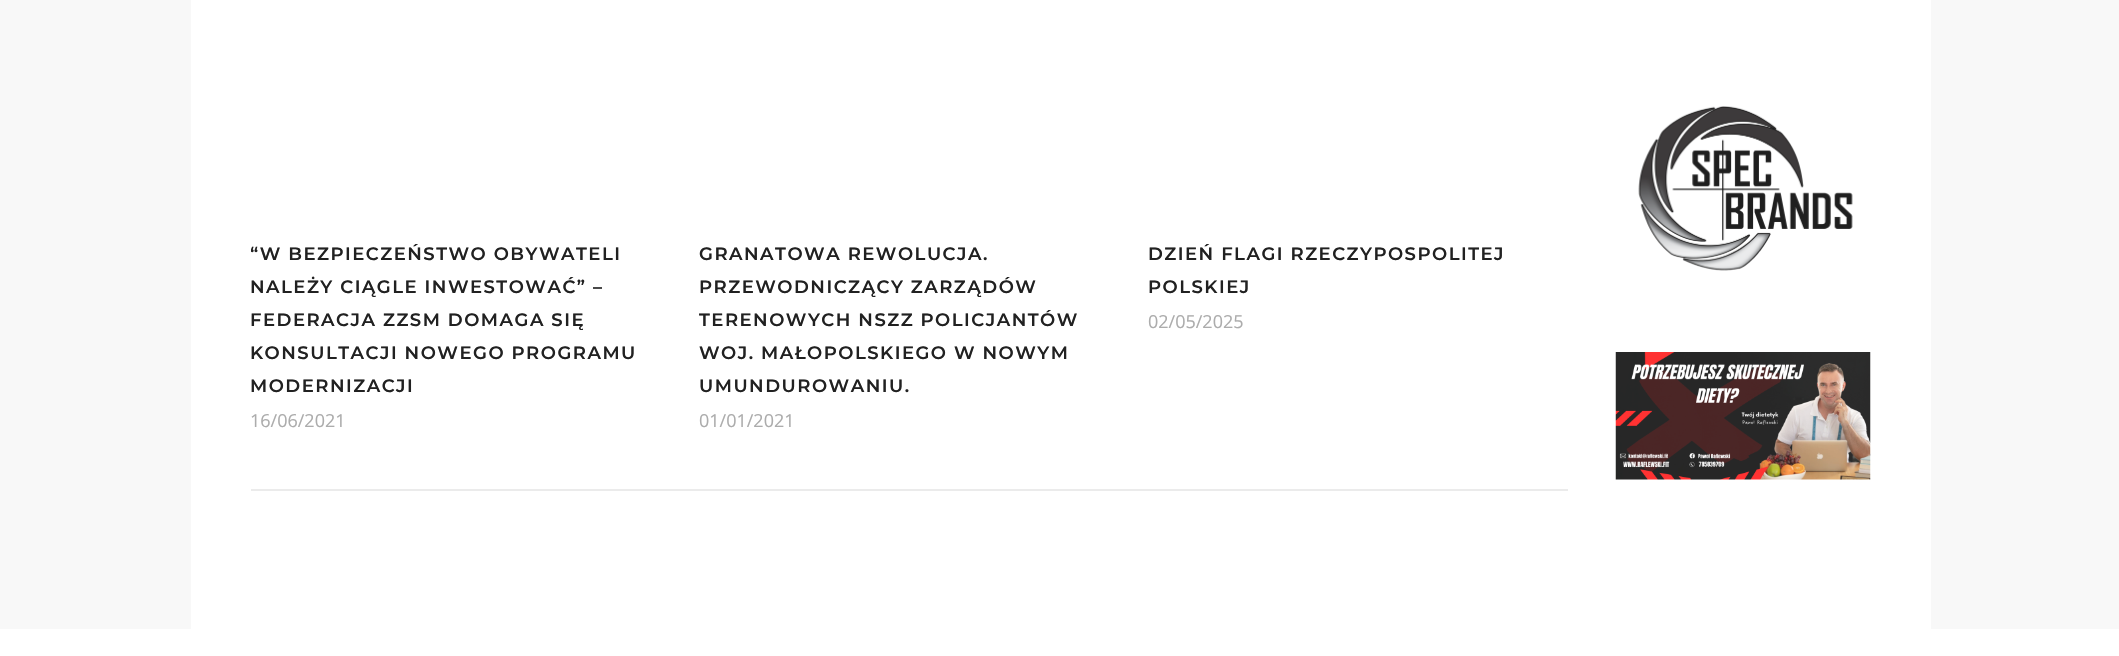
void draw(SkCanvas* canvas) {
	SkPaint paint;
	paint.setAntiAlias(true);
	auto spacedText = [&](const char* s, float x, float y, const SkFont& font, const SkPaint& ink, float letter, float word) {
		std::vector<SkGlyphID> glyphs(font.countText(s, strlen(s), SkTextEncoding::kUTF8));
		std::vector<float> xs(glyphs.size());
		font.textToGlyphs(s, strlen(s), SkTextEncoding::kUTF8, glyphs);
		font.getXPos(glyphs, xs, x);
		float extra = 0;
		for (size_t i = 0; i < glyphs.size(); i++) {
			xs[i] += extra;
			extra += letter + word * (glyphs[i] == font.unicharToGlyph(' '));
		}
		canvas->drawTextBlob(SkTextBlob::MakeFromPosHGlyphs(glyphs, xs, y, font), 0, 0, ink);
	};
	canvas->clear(0xfff8f8f8);
	paint.setColor(0xffffffff);
	canvas->drawRect(SkRect::MakeXYWH(191, 0, 1740, 629), paint);
	paint.setColor(0xffebebeb);
	canvas->drawRect(SkRect::MakeXYWH(251, 489, 1317, 2), paint);
	canvas->save();
	canvas->clipRect(SkRect::MakeXYWH(251, 0, 1317, 491));
	SkFont f1(fontMgr->matchFamilyStyle("Montserrat", SkFontStyle(600, SkFontStyle::kNormal_Width, SkFontStyle::kUpright_Slant)), 18);
	f1.setSubpixel(true);
	paint.setColor(0xff212121);
	spacedText("“W BEZPIECZEŃSTWO OBYWATELI", 250, 260, f1, paint, 1.5, 0);
	canvas->restore();
	spacedText("NALEŻY CIĄGLE INWESTOWAĆ” –", 250, 293, f1, paint, 1.5, 0);
	spacedText("FEDERACJA ZZSM DOMAGA SIĘ", 250, 326, f1, paint, 1.5, 0);
	spacedText("KONSULTACJI NOWEGO PROGRAMU", 250, 359, f1, paint, 1.5, 0);
	spacedText("MODERNIZACJI", 250, 392, f1, paint, 1.5, 0);
	SkFont f2(fontMgr->matchFamilyStyle("Open Sans", SkFontStyle::Normal()), 18);
	f2.setSubpixel(true);
	paint.setColor(0xffacacac);
	canvas->drawString("16/06/2021", 250, 427, f2, paint);
	paint.setColor(0xff212121);
	spacedText("GRANATOWA REWOLUCJA.", 699, 260, f1, paint, 1.5, 0);
	spacedText("PRZEWODNICZĄCY ZARZĄDÓW", 699, 293, f1, paint, 1.5, 0);
	spacedText("TERENOWYCH NSZZ POLICJANTÓW", 699, 326, f1, paint, 1.5, 0);
	spacedText("WOJ. MAŁOPOLSKIEGO W NOWYM", 699, 359, f1, paint, 1.5, 0);
	spacedText("UMUNDUROWANIU.", 699, 392, f1, paint, 1.5, 0);
	paint.setColor(0xffacacac);
	canvas->drawString("01/01/2021", 699, 427, f2, paint);
	paint.setColor(0xff212121);
	spacedText("DZIEŃ FLAGI RZECZYPOSPOLITEJ", 1148, 260, f1, paint, 1.5, 0);
	spacedText("POLSKIEJ", 1148, 293, f1, paint, 1.5, 0);
	paint.setColor(0xffacacac);
	canvas->drawString("02/05/2025", 1148, 328, f2, paint);
	canvas->drawImageRect(SkImages::DeferredFromEncodedData(SkData::MakeFromFileName("img1.png")), SkRect::MakeXYWH(1638, 106, 215, 165), SkSamplingOptions());
	canvas->drawImageRect(SkImages::DeferredFromEncodedData(SkData::MakeFromFileName("img2.png")), SkRect::MakeXYWH(1615, 352, 256, 128), SkSamplingOptions());
	paint.setColor(0xffffffff);
	canvas->drawRect(SkRect::MakeXYWH(0, 629, 2119, 27), paint);
}
